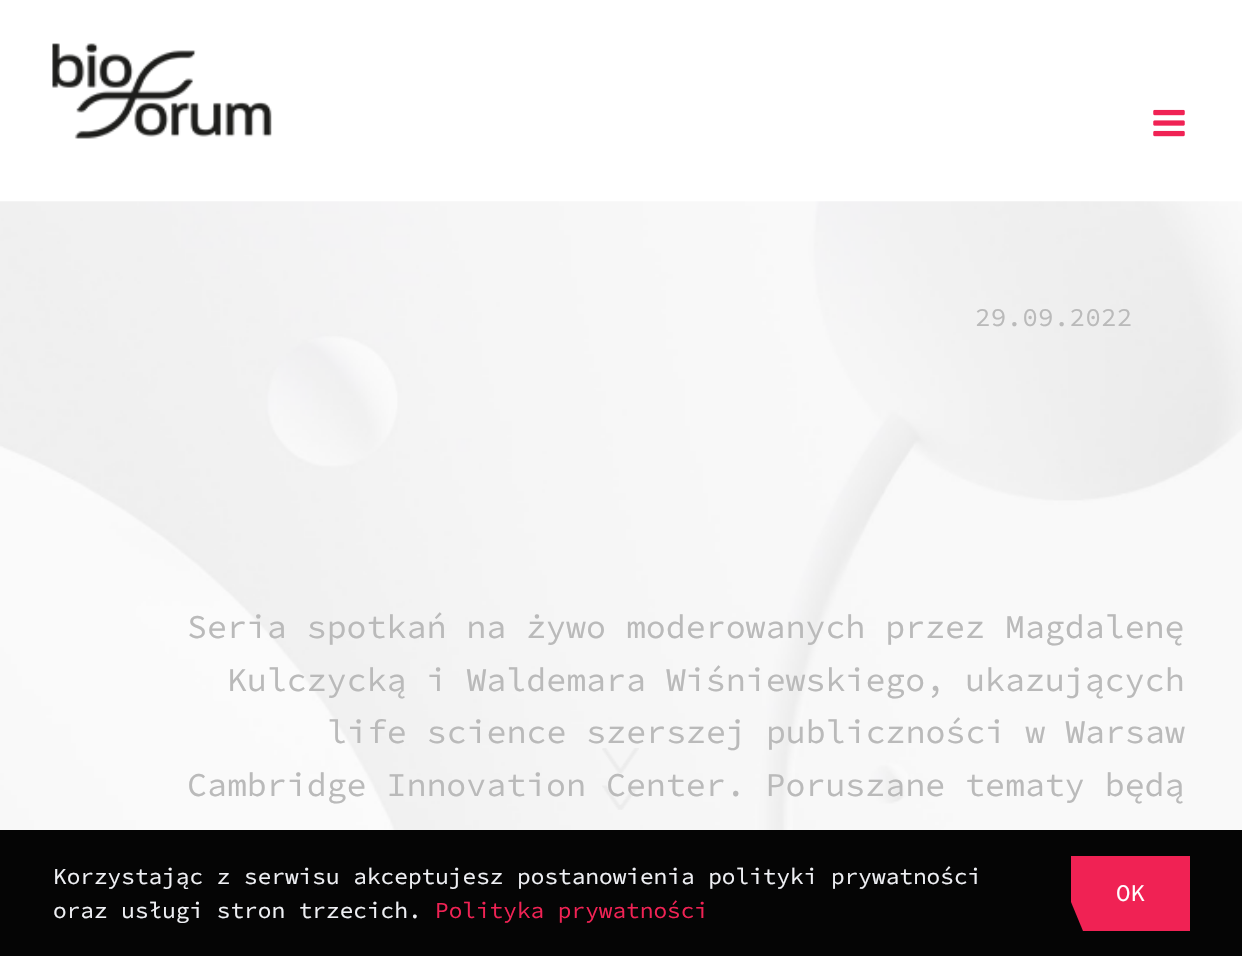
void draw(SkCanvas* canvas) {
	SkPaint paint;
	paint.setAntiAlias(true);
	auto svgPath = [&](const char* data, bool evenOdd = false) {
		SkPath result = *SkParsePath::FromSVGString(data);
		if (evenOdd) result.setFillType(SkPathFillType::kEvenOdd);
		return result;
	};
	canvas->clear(0xffffffff);
	canvas->drawImageRect(SkImages::DeferredFromEncodedData(SkData::MakeFromFileName("img1.png")), SkRect::MakeXYWH(52, 43, 220, 96), SkSamplingOptions());
	canvas->drawImageRect(SkImages::DeferredFromEncodedData(SkData::MakeFromFileName("img2.png")), SkRect::MakeXYWH(1153, 109, 32, 28), SkSamplingOptions());
	canvas->drawImageRect(SkImages::DeferredFromEncodedData(SkData::MakeFromFileName("img3.png")), SkRect::MakeXYWH(0, 201, 1242, 629), SkSamplingOptions());
	SkFont f1(fontMgr->matchFamilyStyle("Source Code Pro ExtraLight", SkFontStyle::Normal()), 26.25);
	f1.setSubpixel(true);
	paint.setColor(0xffbababa);
	canvas->drawString("29.09.2022", 975, 326, f1, paint);
	SkFont f2(fontMgr->matchFamilyStyle("Source Code Pro ExtraLight", SkFontStyle::Normal()), 33.25);
	f2.setSubpixel(true);
	canvas->drawString("Seria spotkań na żywo moderowanych przez Magdalenę", 187, 638, f2, paint);
	canvas->drawString("Kulczycką i Waldemara Wiśniewskiego, ukazujących", 227, 691, f2, paint);
	canvas->drawString("life science szerszej publiczności w Warsaw", 327, 743, f2, paint);
	canvas->drawString("Cambridge Innovation Center. Poruszane tematy będą", 187, 796, f2, paint);
	canvas->drawImageRect(SkImages::DeferredFromEncodedData(SkData::MakeFromFileName("img4.png")), SkRect::MakeXYWH(602, 748, 37, 62), SkSamplingOptions());
	paint.setColor(0xff050505);
	canvas->drawRect(SkRect::MakeXYWH(0, 830, 1242, 126), paint);
	SkFont f3(fontMgr->matchFamilyStyle("Source Code Pro ExtraLight", SkFontStyle::Normal()), 22.75);
	f3.setSubpixel(true);
	paint.setColor(0xffeff0f4);
	canvas->drawString("Korzystając z serwisu akceptujesz postanowienia polityki prywatności", 53, 884, f3, paint);
	canvas->drawString("oraz usługi stron trzecich.", 53, 918, f3, paint);
	paint.setColor(0xfff02254);
	canvas->drawString("Polityka prywatności", 435, 918, f3, paint);
	canvas->drawPath(svgPath("M1071 856V902L1083 931H1190V856Z"), paint);
	SkFont f4(fontMgr->matchFamilyStyle("Source Code Pro ExtraLight", SkFontStyle::Normal()), 24);
	f4.setSubpixel(true);
	paint.setColor(0xffffffff);
	canvas->drawString("OK", 1116, 901, f4, paint);
}
